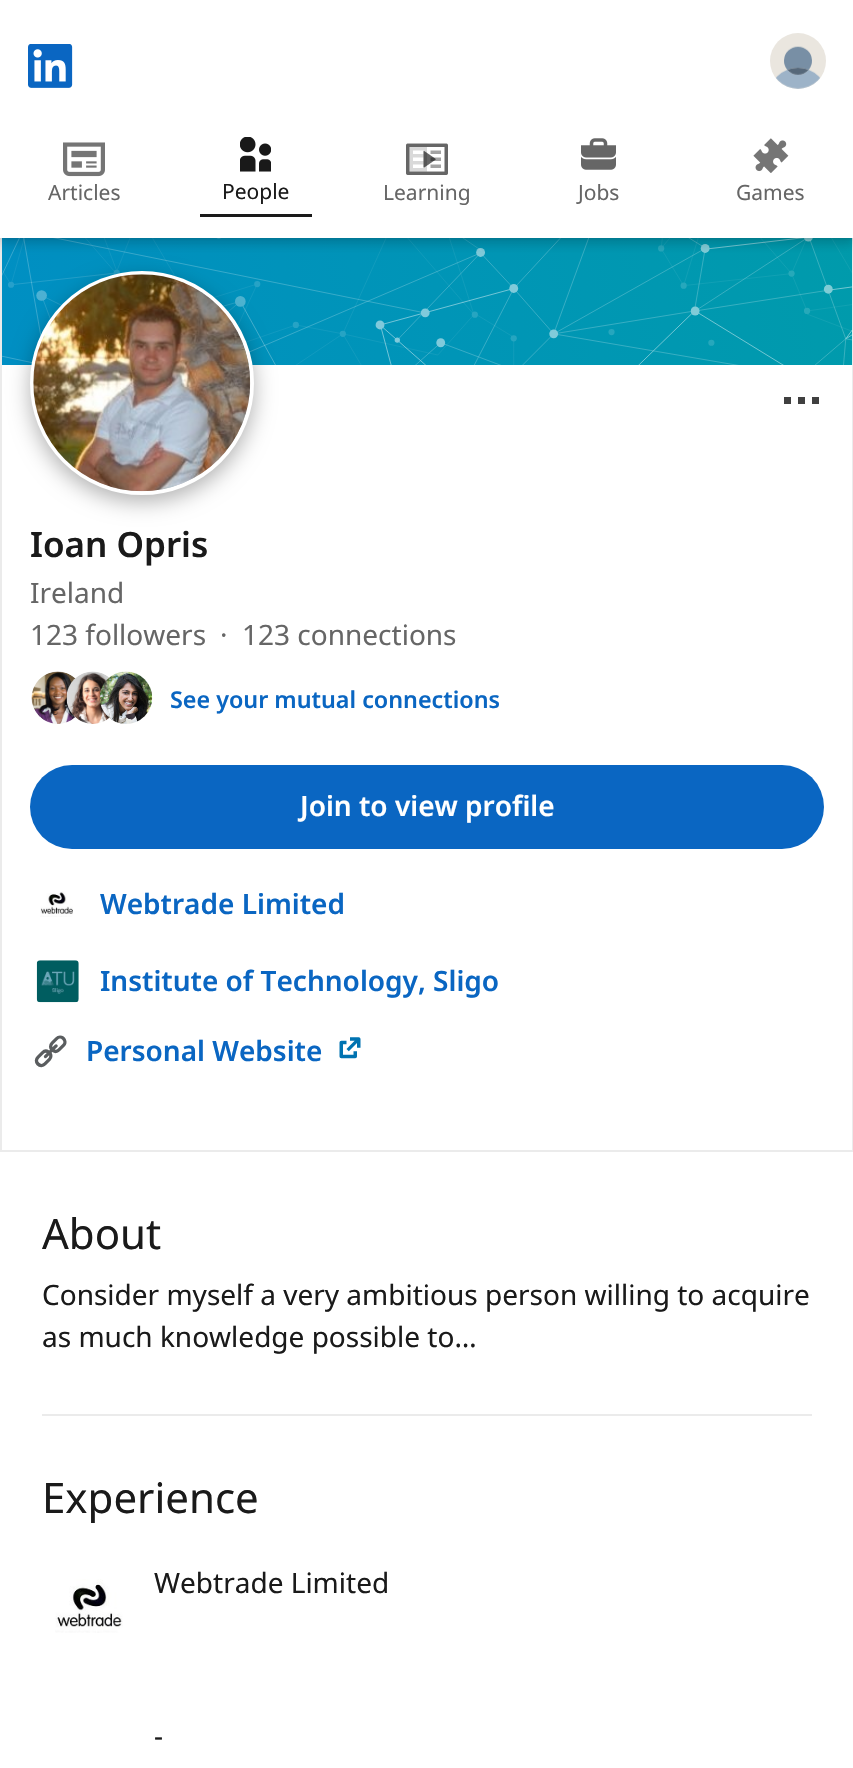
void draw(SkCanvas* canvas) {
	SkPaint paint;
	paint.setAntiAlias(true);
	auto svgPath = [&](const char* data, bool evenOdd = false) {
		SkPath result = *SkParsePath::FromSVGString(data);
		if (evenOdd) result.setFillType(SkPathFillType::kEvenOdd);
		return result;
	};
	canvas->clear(0xffffffff);
	paint.setStroke(true);
	paint.setStrokeWidth(2);
	paint.setColor(0xffebebeb);
	canvas->drawRect(SkRect::MakeXYWH(1, 152, 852, 999), paint);
	canvas->drawImageRect(SkImages::DeferredFromEncodedData(SkData::MakeFromFileName("img8.png")), SkRect::MakeXYWH(2, 238, 850, 127), SkSamplingOptions());
	paint.setStroke(false);
	paint.setColor(0x26000000);
	paint.setMaskFilter(SkMaskFilter::MakeBlur(kNormal_SkBlurStyle, 2));
	canvas->drawRect(SkRect::MakeXYWH(0, 0, 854, 238), paint);
	paint.setMaskFilter(nullptr);
	paint.setMaskFilter(SkMaskFilter::MakeBlur(kNormal_SkBlurStyle, 5));
	canvas->drawRect(SkRect::MakeXYWH(0, 7, 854, 238), paint);
	paint.setMaskFilter(nullptr);
	paint.setColor(0xffffffff);
	canvas->drawRect(SkRect::MakeXYWH(0, 0, 853, 238), paint);
	canvas->drawImageRect(SkImages::DeferredFromEncodedData(SkData::MakeFromFileName("img1.png")), SkRect::MakeXYWH(28, 44, 45, 44), SkSamplingOptions());
	paint.setColor(0xffeae6df);
	canvas->drawCircle(798, 61, 28, paint);
	canvas->drawImageRect(SkImages::DeferredFromEncodedData(SkData::MakeFromFileName("img2.png")), SkRect::MakeXYWH(776, 46, 44, 43), SkSamplingOptions());
	canvas->drawImageRect(SkImages::DeferredFromEncodedData(SkData::MakeFromFileName("img3.png")), SkRect::MakeXYWH(63, 142, 42, 35), SkSamplingOptions());
	SkFont f1(fontMgr->matchFamilyStyle("Noto Sans", SkFontStyle::Normal()), 21);
	f1.setSubpixel(true);
	paint.setColor(0xff666666);
	canvas->drawString("Articles", 48, 200, f1, paint);
	paint.setColor(0xff1a1a1a);
	canvas->drawRect(SkRect::MakeXYWH(200, 214, 112, 3), paint);
	canvas->drawImageRect(SkImages::DeferredFromEncodedData(SkData::MakeFromFileName("img4.png")), SkRect::MakeXYWH(240, 137, 31, 35), SkSamplingOptions());
	canvas->drawString("People", 222, 199, f1, paint);
	canvas->drawImageRect(SkImages::DeferredFromEncodedData(SkData::MakeFromFileName("img5.png")), SkRect::MakeXYWH(406, 143, 42, 32), SkSamplingOptions());
	paint.setColor(0xff666666);
	canvas->drawString("Learning", 383, 200, f1, paint);
	canvas->drawImageRect(SkImages::DeferredFromEncodedData(SkData::MakeFromFileName("img6.png")), SkRect::MakeXYWH(581, 138, 35, 32), SkSamplingOptions());
	canvas->drawString("Jobs", 578, 200, f1, paint);
	canvas->drawImageRect(SkImages::DeferredFromEncodedData(SkData::MakeFromFileName("img7.png")), SkRect::MakeXYWH(753, 138, 36, 35), SkSamplingOptions());
	canvas->drawString("Games", 736, 200, f1, paint);
	paint.setColor(0x4d000000);
	paint.setMaskFilter(SkMaskFilter::MakeBlur(kNormal_SkBlurStyle, 10.5));
	canvas->drawRoundRect(SkRect::MakeXYWH(30, 278, 224, 224), 112, 112, paint);
	paint.setMaskFilter(nullptr);
	paint.setStroke(true);
	paint.setStrokeWidth(4);
	paint.setColor(0xffffffff);
	canvas->drawCircle(142, 383, 110, paint);
	canvas->drawImageRect(SkImages::DeferredFromEncodedData(SkData::MakeFromFileName("img9.png")), SkRect::MakeXYWH(33, 274, 218, 218), SkSamplingOptions());
	paint.setStroke(false);
	paint.setColor(0xff404040);
	canvas->drawPath(svgPath("M784 397H791V404H784ZM798 404H805V397H798ZM812 397V404H819V397Z"), paint);
	SkFont f2(fontMgr->matchFamilyStyle("Noto Sans", SkFontStyle(600, SkFontStyle::kNormal_Width, SkFontStyle::kUpright_Slant)), 35);
	f2.setSubpixel(true);
	paint.setColor(0xff1a1a1a);
	canvas->drawString("Ioan Opris", 30, 557, f2, paint);
	SkFont f3(fontMgr->matchFamilyStyle("Noto Sans", SkFontStyle::Normal()), 28);
	f3.setSubpixel(true);
	paint.setColor(0xff666666);
	canvas->drawString("Ireland", 30, 603, f3, paint);
	canvas->drawString("123 followers", 30, 645, f3, paint);
	canvas->drawString("·", 220, 645, f3, paint);
	canvas->drawString("123 connections", 242, 645, f3, paint);
	canvas->drawImageRect(SkImages::DeferredFromEncodedData(SkData::MakeFromFileName("img10.png")), SkRect::MakeXYWH(31, 671, 45, 53), SkSamplingOptions());
	canvas->drawImageRect(SkImages::DeferredFromEncodedData(SkData::MakeFromFileName("img11.png")), SkRect::MakeXYWH(66, 671, 44, 53), SkSamplingOptions());
	canvas->drawImageRect(SkImages::DeferredFromEncodedData(SkData::MakeFromFileName("img12.png")), SkRect::MakeXYWH(100, 671, 53, 53), SkSamplingOptions());
	SkFont f4(fontMgr->matchFamilyStyle("Noto Sans", SkFontStyle(600, SkFontStyle::kNormal_Width, SkFontStyle::kUpright_Slant)), 23.3);
	f4.setSubpixel(true);
	paint.setColor(0xff0a66c2);
	canvas->drawString("See your mutual connections", 170, 708, f4, paint);
	canvas->drawRoundRect(SkRect::MakeXYWH(30, 765, 794, 84), 42, 42, paint);
	SkFont f5(fontMgr->matchFamilyStyle("Noto Sans", SkFontStyle(600, SkFontStyle::kNormal_Width, SkFontStyle::kUpright_Slant)), 28);
	f5.setSubpixel(true);
	paint.setColor(0xffffffff);
	canvas->drawString("Join to view profile", 300, 816, f5, paint);
	canvas->drawImageRect(SkImages::DeferredFromEncodedData(SkData::MakeFromFileName("img13.png")), SkRect::MakeXYWH(40, 891, 33, 26), SkSamplingOptions());
	paint.setColor(0xff0a66c2);
	canvas->drawString("Webtrade Limited", 100, 914, f5, paint);
	canvas->drawImageRect(SkImages::DeferredFromEncodedData(SkData::MakeFromFileName("img14.png")), SkRect::MakeXYWH(36, 960, 43, 43), SkSamplingOptions());
	canvas->drawString("Institute of Technology, Sligo", 100, 991, f5, paint);
	canvas->drawImageRect(SkImages::DeferredFromEncodedData(SkData::MakeFromFileName("img15.png")), SkRect::MakeXYWH(34, 1035, 33, 33), SkSamplingOptions());
	canvas->drawString("Personal Website", 86, 1061, f5, paint);
	canvas->drawImageRect(SkImages::DeferredFromEncodedData(SkData::MakeFromFileName("img16.png")), SkRect::MakeXYWH(339, 1037, 22, 22), SkSamplingOptions());
	paint.setColor(0xffebebeb);
	canvas->drawRect(SkRect::MakeXYWH(42, 1414, 770, 2), paint);
	SkFont f6(fontMgr->matchFamilyStyle("Noto Sans", SkFontStyle::Normal()), 42);
	f6.setSubpixel(true);
	paint.setColor(0xff1a1a1a);
	canvas->drawString("About", 42, 1249, f6, paint);
	canvas->drawString("Consider myself a very ambitious person willing to acquire", 42, 1305, f3, paint);
	canvas->drawString("as much knowledge possible to…", 42, 1347, f3, paint);
	canvas->drawString("Experience", 42, 1513, f6, paint);
	canvas->drawImageRect(SkImages::DeferredFromEncodedData(SkData::MakeFromFileName("img17.png")), SkRect::MakeXYWH(55, 1579, 68, 54), SkSamplingOptions());
	canvas->drawString("Webtrade Limited", 154, 1593, f3, paint);
	canvas->drawString("-", 154, 1746, f3, paint);
}
